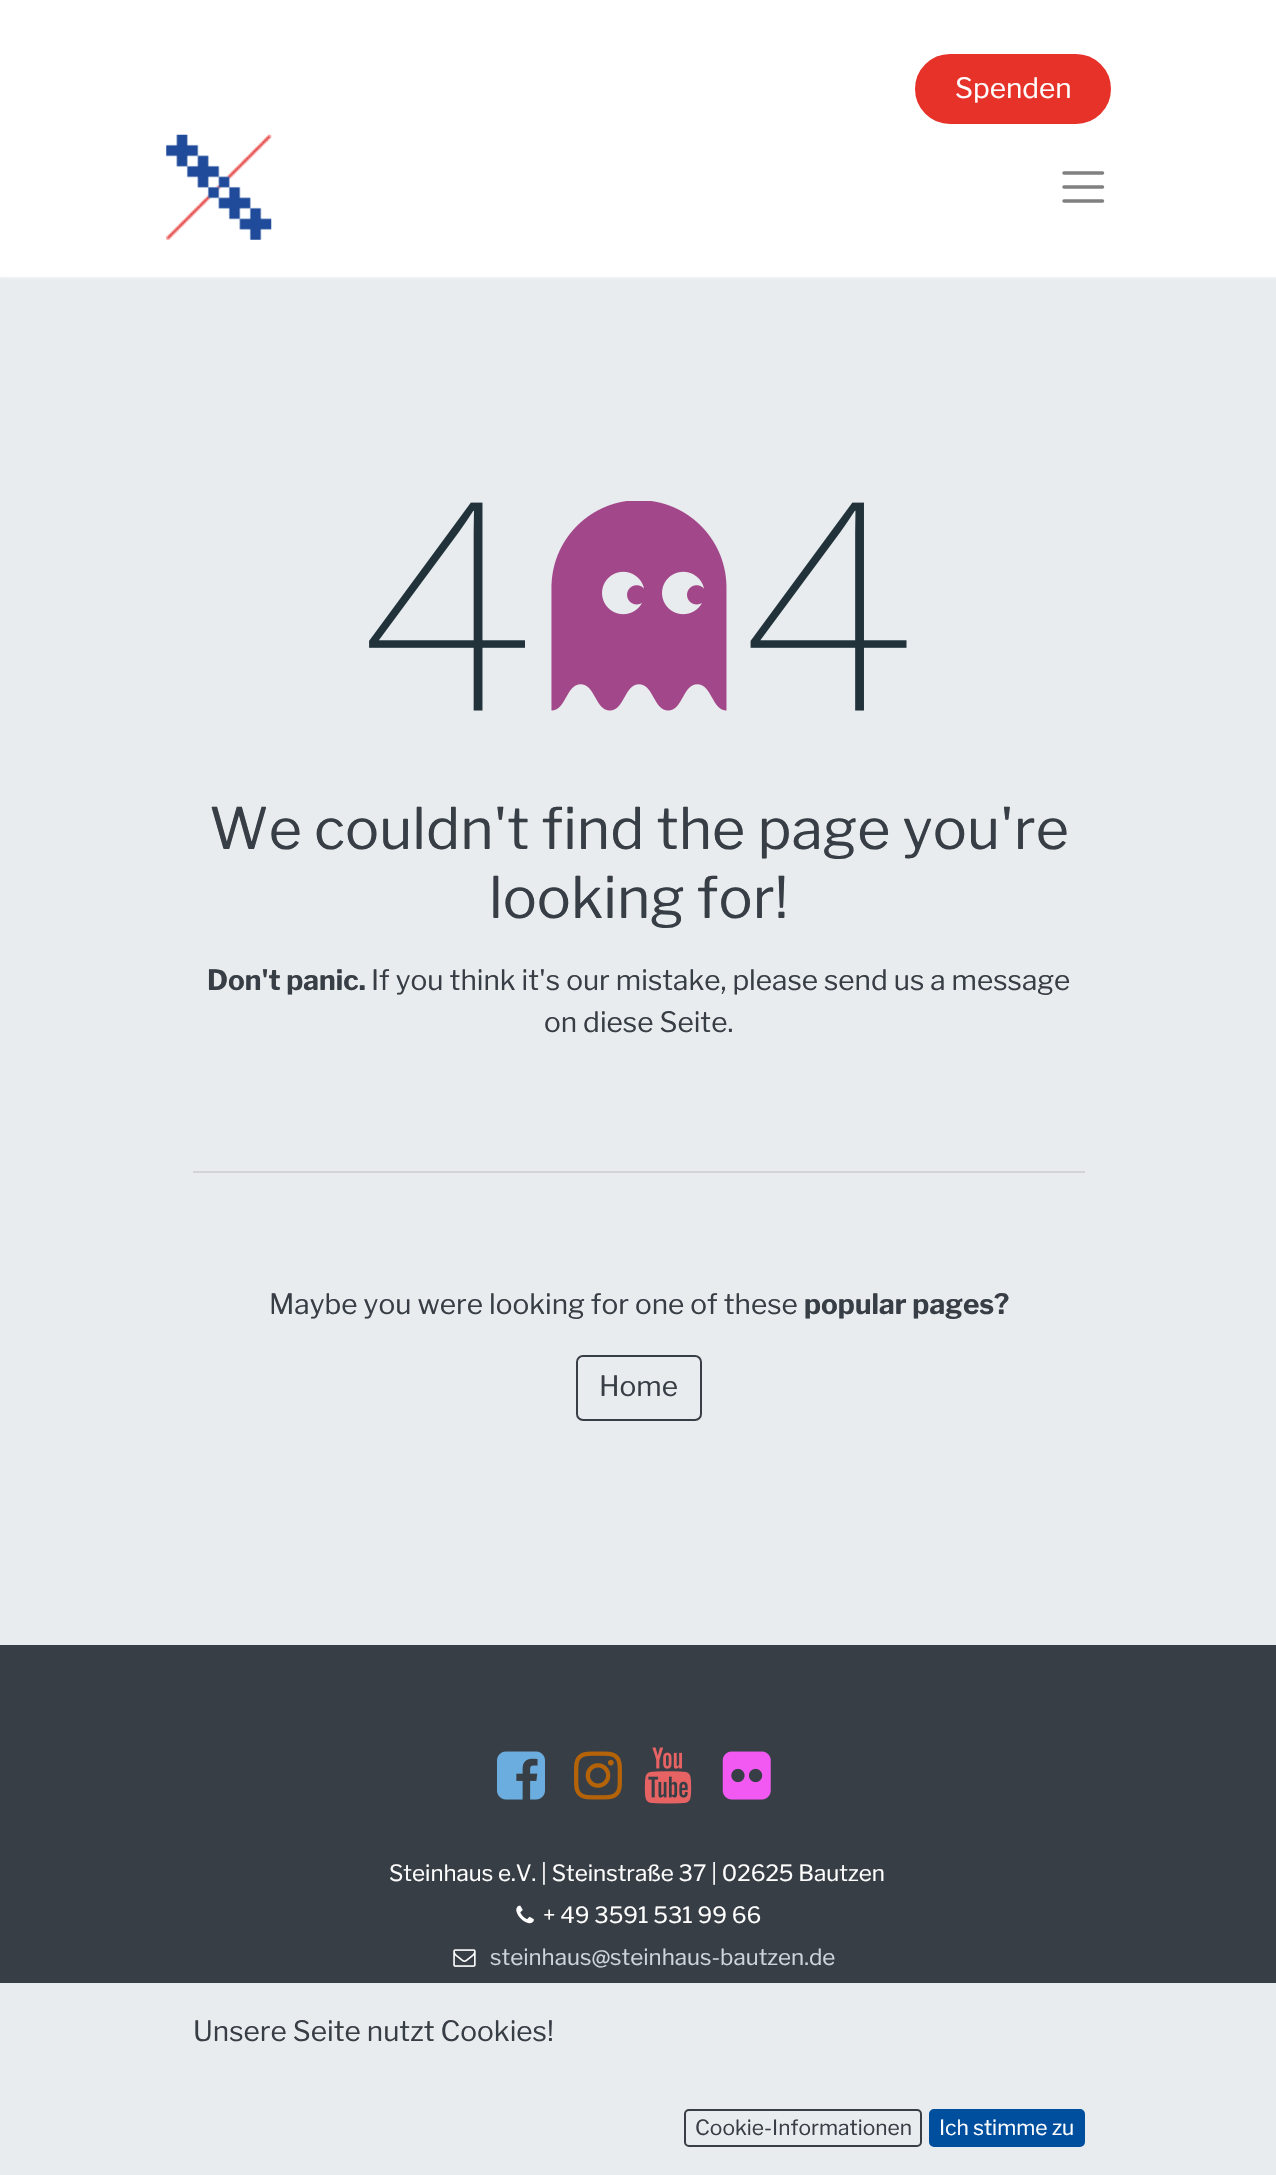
void draw(SkCanvas* canvas) {
	SkPaint paint;
	paint.setAntiAlias(true);
	auto svgPath = [&](const char* data, bool evenOdd = false) {
		SkPath result = *SkParsePath::FromSVGString(data);
		if (evenOdd) result.setFillType(SkPathFillType::kEvenOdd);
		return result;
	};
	canvas->clear(0xffe9ecef);
	paint.setColor(0xfff6f6f6);
	paint.setMaskFilter(SkMaskFilter::MakeBlur(kNormal_SkBlurStyle, 1));
	canvas->drawRect(SkRect::MakeXYWH(0, 2, 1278, 276), paint);
	paint.setMaskFilter(nullptr);
	paint.setColor(0xffffffff);
	canvas->drawRect(SkRect::MakeXYWH(0, 0, 1276, 277), paint);
	paint.setColor(0xffe63229);
	canvas->drawRoundRect(SkRect::MakeXYWH(916, 55, 194, 68), 34, 34, paint);
	paint.setStroke(true);
	paint.setStrokeWidth(2);
	canvas->drawRoundRect(SkRect::MakeXYWH(916, 55, 194, 68), 34, 34, paint);
	SkFont f1(fontMgr->matchFamilyStyle("Libre Franklin", SkFontStyle(100, SkFontStyle::kNormal_Width, SkFontStyle::kUpright_Slant)), 28);
	f1.setSubpixel(true);
	paint.setStroke(false);
	paint.setColor(0xffffffff);
	canvas->drawString("Spenden", 955, 98, f1, paint);
	canvas->drawImageRect(SkImages::DeferredFromEncodedData(SkData::MakeFromFileName("img1.png")), SkRect::MakeXYWH(166, 134, 106, 106), SkSamplingOptions());
	paint.setStroke(true);
	paint.setStrokeWidth(3.5);
	paint.setStrokeCap(SkPaint::kRound_Cap);
	paint.setColor(0xff808080);
	canvas->drawPath(svgPath("M1064 173H1102.5M1064 187H1102.5M1064 201H1102.5"), paint);
	canvas->drawImageRect(SkImages::DeferredFromEncodedData(SkData::MakeFromFileName("img2.png")), SkRect::MakeXYWH(369, 501, 538, 210), SkSamplingOptions());
	SkFont f2(fontMgr->matchFamilyStyle("Libre Franklin", SkFontStyle(100, SkFontStyle::kNormal_Width, SkFontStyle::kUpright_Slant)), 57.1);
	f2.setSubpixel(true);
	paint.setStroke(false);
	paint.setColor(0xff383e45);
	canvas->drawString("We couldn't find the page you're", 209, 849, f2, paint);
	canvas->drawString("looking for!", 489, 918, f2, paint);
	SkFont f3(fontMgr->matchFamilyStyle("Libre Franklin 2", SkFontStyle(100, SkFontStyle::kNormal_Width, SkFontStyle::kUpright_Slant)), 28);
	f3.setSubpixel(true);
	canvas->drawString("Don't panic.", 207, 990, f3, paint);
	canvas->drawString("If you think it's our mistake, please send us a message", 371, 990, f1, paint);
	canvas->drawString("on diese Seite.", 544, 1032, f1, paint);
	paint.setColor(0xffd2d4d7);
	canvas->drawRect(SkRect::MakeXYWH(193, 1171, 892, 2), paint);
	paint.setColor(0xff383e45);
	canvas->drawString("Maybe you were looking for one of these", 269, 1314, f1, paint);
	canvas->drawString("popular pages?", 804, 1314, f3, paint);
	paint.setStroke(true);
	paint.setStrokeWidth(2);
	paint.setStrokeCap(SkPaint::kButt_Cap);
	canvas->drawRoundRect(SkRect::MakeXYWH(577, 1356, 124, 64), 6, 6, paint);
	paint.setStroke(false);
	canvas->drawString("Home", 599, 1396, f1, paint);
	canvas->drawRect(SkRect::MakeXYWH(0, 1645, 1276, 338), paint);
	canvas->drawImageRect(SkImages::DeferredFromEncodedData(SkData::MakeFromFileName("img3.png")), SkRect::MakeXYWH(497, 1751, 48, 49), SkSamplingOptions());
	canvas->drawImageRect(SkImages::DeferredFromEncodedData(SkData::MakeFromFileName("img4.png")), SkRect::MakeXYWH(574, 1751, 48, 49), SkSamplingOptions());
	canvas->drawImageRect(SkImages::DeferredFromEncodedData(SkData::MakeFromFileName("img5.png")), SkRect::MakeXYWH(644, 1747, 48, 57), SkSamplingOptions());
	canvas->drawImageRect(SkImages::DeferredFromEncodedData(SkData::MakeFromFileName("img6.png")), SkRect::MakeXYWH(722, 1751, 49, 49), SkSamplingOptions());
	SkFont f4(fontMgr->matchFamilyStyle("Libre Franklin", SkFontStyle(100, SkFontStyle::kNormal_Width, SkFontStyle::kUpright_Slant)), 22.4);
	f4.setSubpixel(true);
	paint.setColor(0xffffffff);
	canvas->drawString("Steinhaus e.V. | Steinstraße 37 | 02625 Bautzen", 389, 1881, f4, paint);
	canvas->drawImageRect(SkImages::DeferredFromEncodedData(SkData::MakeFromFileName("img7.png")), SkRect::MakeXYWH(516, 1905, 18, 19), SkSamplingOptions());
	canvas->drawString("+ 49 3591 531 99 66", 543, 1923, f4, paint);
	canvas->drawImageRect(SkImages::DeferredFromEncodedData(SkData::MakeFromFileName("img8.png")), SkRect::MakeXYWH(453, 1949, 23, 18), SkSamplingOptions());
	paint.setColor(0xffced4da);
	canvas->drawString("steinhaus@steinhaus-bautzen.de", 490, 1965, f4, paint);
	paint.setColor(0xff383e45);
	canvas->drawString("Unsere Seite nutzt Cookies!", 193, 2041, f1, paint);
	paint.setStroke(true);
	canvas->drawRoundRect(SkRect::MakeXYWH(685, 2110, 236, 36), 4, 4, paint);
	SkFont f5(fontMgr->matchFamilyStyle("Libre Franklin", SkFontStyle(100, SkFontStyle::kNormal_Width, SkFontStyle::kUpright_Slant)), 21);
	f5.setSubpixel(true);
	paint.setStroke(false);
	canvas->drawString("Cookie-Informationen", 695, 2135, f5, paint);
	paint.setColor(0xff004e9e);
	canvas->drawRoundRect(SkRect::MakeXYWH(930, 2110, 154, 36), 4, 4, paint);
	paint.setStroke(true);
	canvas->drawRoundRect(SkRect::MakeXYWH(930, 2110, 154, 36), 4, 4, paint);
	paint.setStroke(false);
	paint.setColor(0xffffffff);
	canvas->drawString("Ich stimme zu", 939, 2135, f5, paint);
}
